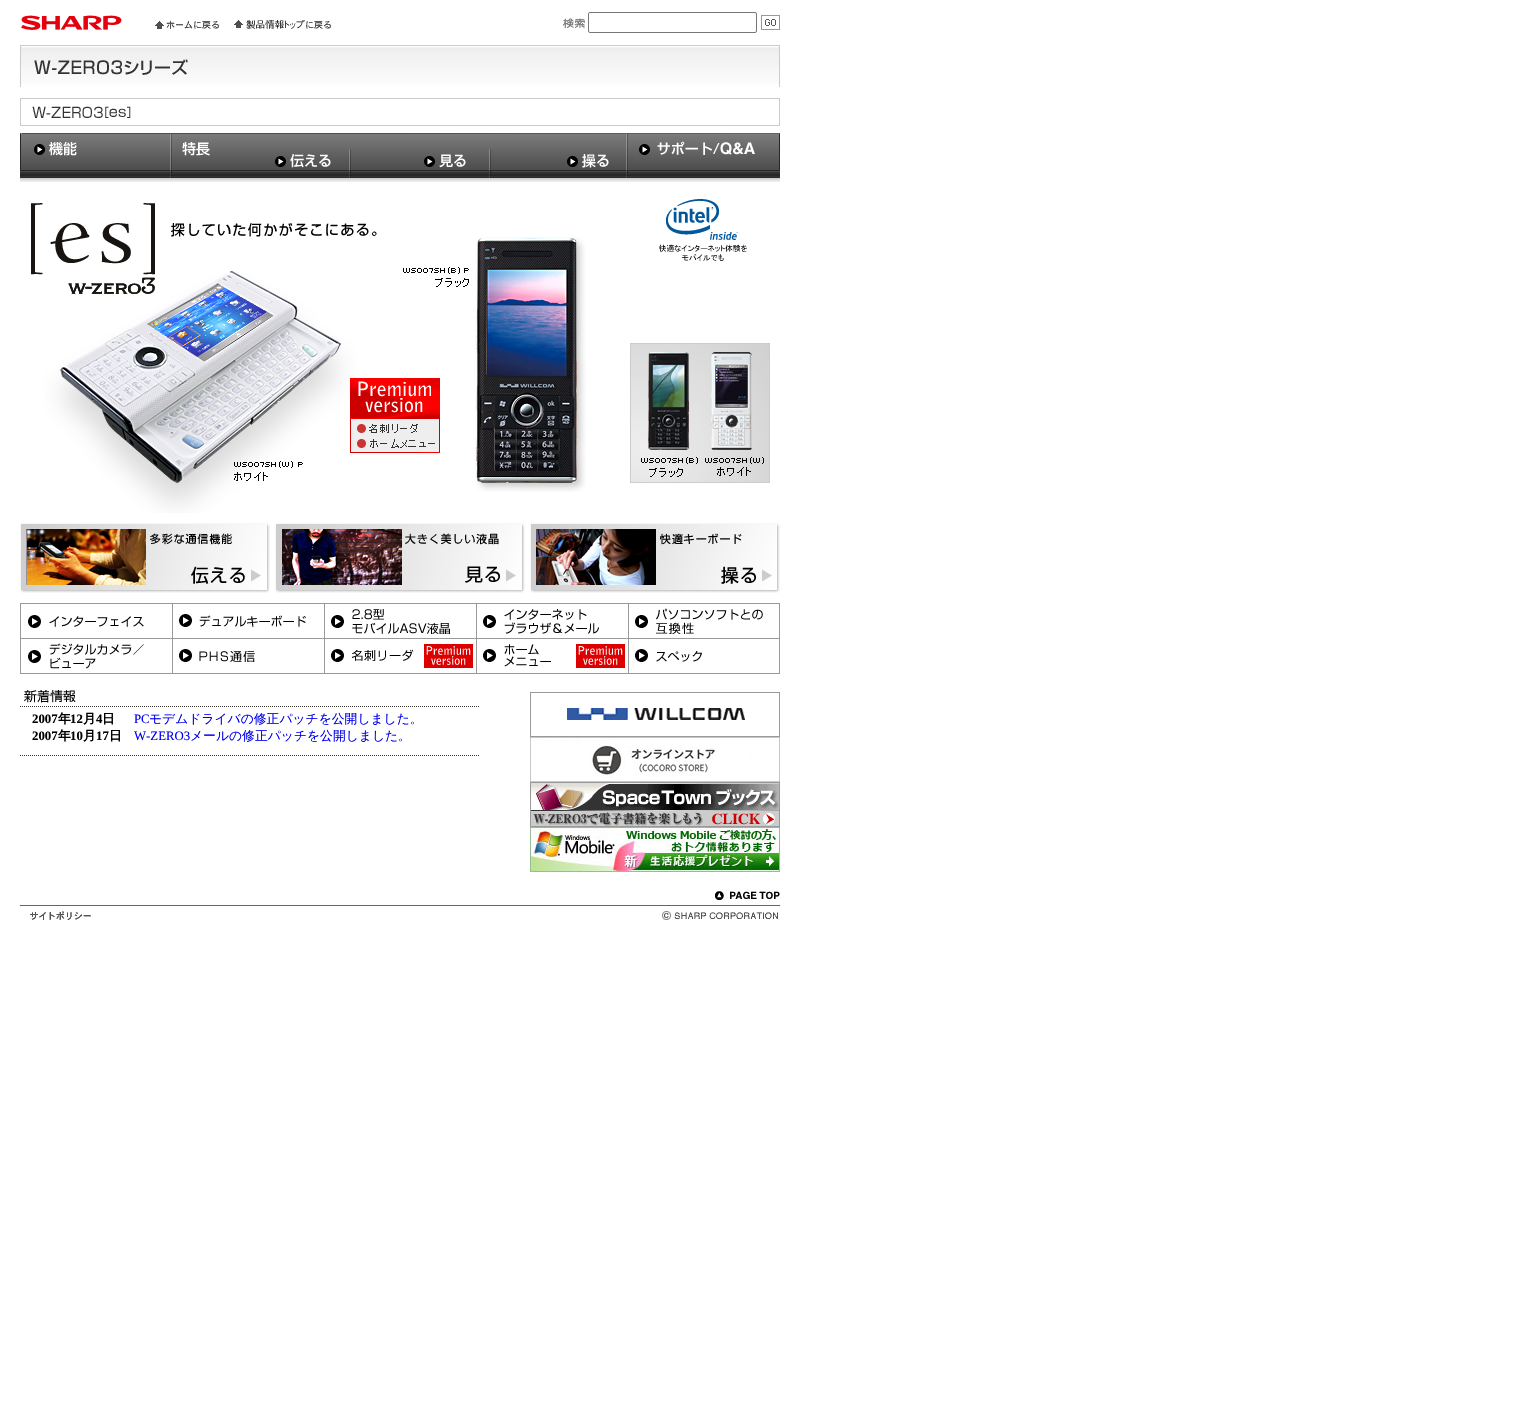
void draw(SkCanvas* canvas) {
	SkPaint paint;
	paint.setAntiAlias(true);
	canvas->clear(0xffffffff);
	canvas->drawImageRect(SkImages::DeferredFromEncodedData(SkData::MakeFromFileName("img1.png")), SkRect::MakeXYWH(21, 15, 101, 15), SkSamplingOptions());
	canvas->drawImageRect(SkImages::DeferredFromEncodedData(SkData::MakeFromFileName("img2.png")), SkRect::MakeXYWH(155, 21, 64, 8), SkSamplingOptions());
	canvas->drawImageRect(SkImages::DeferredFromEncodedData(SkData::MakeFromFileName("img3.png")), SkRect::MakeXYWH(234, 20, 99, 9), SkSamplingOptions());
	canvas->drawImageRect(SkImages::DeferredFromEncodedData(SkData::MakeFromFileName("img4.png")), SkRect::MakeXYWH(563, 18, 22, 10), SkSamplingOptions());
	paint.setStroke(true);
	paint.setStrokeWidth(1);
	paint.setColor(0xff767676);
	canvas->drawRoundRect(SkRect::MakeXYWH(588.5, 12.5, 168, 20), 1.5, 1.5, paint);
	canvas->drawImageRect(SkImages::DeferredFromEncodedData(SkData::MakeFromFileName("img5.png")), SkRect::MakeXYWH(761, 15, 19, 15), SkSamplingOptions());
	canvas->drawImageRect(SkImages::DeferredFromEncodedData(SkData::MakeFromFileName("img6.png")), SkRect::MakeXYWH(20, 45, 760, 42), SkSamplingOptions());
	canvas->drawImageRect(SkImages::DeferredFromEncodedData(SkData::MakeFromFileName("img7.png")), SkRect::MakeXYWH(34, 59, 154, 16), SkSamplingOptions());
	paint.setColor(0xffcbcbcb);
	canvas->drawRect(SkRect::MakeXYWH(20.5, 98.5, 759, 27), paint);
	canvas->drawImageRect(SkImages::DeferredFromEncodedData(SkData::MakeFromFileName("img8.png")), SkRect::MakeXYWH(32, 106, 99, 12), SkSamplingOptions());
	paint.setStroke(false);
	paint.setColor(0xff4c4c4c);
	canvas->drawRect(SkRect::MakeXYWH(171, 133, 180, 1), paint);
	canvas->drawImageRect(SkImages::DeferredFromEncodedData(SkData::MakeFromFileName("img9.png")), SkRect::MakeXYWH(20, 133, 151, 45), SkSamplingOptions());
	canvas->drawImageRect(SkImages::DeferredFromEncodedData(SkData::MakeFromFileName("img10.png")), SkRect::MakeXYWH(171, 134, 48, 44), SkSamplingOptions());
	canvas->drawImageRect(SkImages::DeferredFromEncodedData(SkData::MakeFromFileName("img11.png")), SkRect::MakeXYWH(219, 134, 132, 44), SkSamplingOptions());
	canvas->drawImageRect(SkImages::DeferredFromEncodedData(SkData::MakeFromFileName("img12.png")), SkRect::MakeXYWH(351, 133, 140, 45), SkSamplingOptions());
	canvas->drawImageRect(SkImages::DeferredFromEncodedData(SkData::MakeFromFileName("img13.png")), SkRect::MakeXYWH(491, 133, 136, 45), SkSamplingOptions());
	canvas->drawImageRect(SkImages::DeferredFromEncodedData(SkData::MakeFromFileName("img14.png")), SkRect::MakeXYWH(627, 133, 153, 45), SkSamplingOptions());
	canvas->drawImageRect(SkImages::DeferredFromEncodedData(SkData::MakeFromFileName("img15.png")), SkRect::MakeXYWH(20, 178, 760, 4), SkSamplingOptions());
	canvas->drawImageRect(SkImages::DeferredFromEncodedData(SkData::MakeFromFileName("img16.png")), SkRect::MakeXYWH(31, 203, 314, 310), SkSamplingOptions());
	canvas->drawImageRect(SkImages::DeferredFromEncodedData(SkData::MakeFromFileName("img17.png")), SkRect::MakeXYWH(345, 223, 100, 230), SkSamplingOptions());
	canvas->drawImageRect(SkImages::DeferredFromEncodedData(SkData::MakeFromFileName("img18.png")), SkRect::MakeXYWH(445, 237, 141, 255), SkSamplingOptions());
	canvas->drawImageRect(SkImages::DeferredFromEncodedData(SkData::MakeFromFileName("img19.png")), SkRect::MakeXYWH(630, 199, 140, 284), SkSamplingOptions());
	canvas->drawImageRect(SkImages::DeferredFromEncodedData(SkData::MakeFromFileName("img20.png")), SkRect::MakeXYWH(20, 523, 250, 70), SkSamplingOptions());
	canvas->drawImageRect(SkImages::DeferredFromEncodedData(SkData::MakeFromFileName("img21.png")), SkRect::MakeXYWH(275, 523, 250, 70), SkSamplingOptions());
	canvas->drawImageRect(SkImages::DeferredFromEncodedData(SkData::MakeFromFileName("img22.png")), SkRect::MakeXYWH(530, 523, 250, 70), SkSamplingOptions());
	paint.setColor(0xff999999);
	canvas->drawRect(SkRect::MakeXYWH(20, 603, 760, 71), paint);
	canvas->drawImageRect(SkImages::DeferredFromEncodedData(SkData::MakeFromFileName("img23.png")), SkRect::MakeXYWH(21, 604, 151, 34), SkSamplingOptions());
	canvas->drawImageRect(SkImages::DeferredFromEncodedData(SkData::MakeFromFileName("img24.png")), SkRect::MakeXYWH(173, 604, 151, 34), SkSamplingOptions());
	canvas->drawImageRect(SkImages::DeferredFromEncodedData(SkData::MakeFromFileName("img25.png")), SkRect::MakeXYWH(325, 604, 151, 34), SkSamplingOptions());
	canvas->drawImageRect(SkImages::DeferredFromEncodedData(SkData::MakeFromFileName("img26.png")), SkRect::MakeXYWH(477, 604, 151, 34), SkSamplingOptions());
	canvas->drawImageRect(SkImages::DeferredFromEncodedData(SkData::MakeFromFileName("img27.png")), SkRect::MakeXYWH(629, 604, 150, 34), SkSamplingOptions());
	canvas->drawImageRect(SkImages::DeferredFromEncodedData(SkData::MakeFromFileName("img28.png")), SkRect::MakeXYWH(21, 639, 151, 34), SkSamplingOptions());
	canvas->drawImageRect(SkImages::DeferredFromEncodedData(SkData::MakeFromFileName("img29.png")), SkRect::MakeXYWH(173, 639, 151, 34), SkSamplingOptions());
	canvas->drawImageRect(SkImages::DeferredFromEncodedData(SkData::MakeFromFileName("img30.png")), SkRect::MakeXYWH(325, 639, 151, 34), SkSamplingOptions());
	canvas->drawImageRect(SkImages::DeferredFromEncodedData(SkData::MakeFromFileName("img31.png")), SkRect::MakeXYWH(477, 639, 151, 34), SkSamplingOptions());
	canvas->drawImageRect(SkImages::DeferredFromEncodedData(SkData::MakeFromFileName("img32.png")), SkRect::MakeXYWH(629, 639, 150, 34), SkSamplingOptions());
	canvas->drawImageRect(SkImages::DeferredFromEncodedData(SkData::MakeFromFileName("img33.png")), SkRect::MakeXYWH(24, 690, 52, 13), SkSamplingOptions());
	canvas->drawImageRect(SkImages::DeferredFromEncodedData(SkData::MakeFromFileName("img34.png")), SkRect::MakeXYWH(20, 706, 459, 1), SkSamplingOptions());
	SkFont f1(fontMgr->matchFamilyStyle("Liberation Serif", SkFontStyle::Bold()), 12.8);
	f1.setSubpixel(true);
	paint.setColor(0xff000000);
	canvas->drawString("2007", 32, 723, f1, paint);
	SkFont f2(fontMgr->matchFamilyStyle("WenQuanYi Zen Hei", SkFontStyle::Bold()), 12.8);
	f2.setSubpixel(true);
	canvas->drawString("年", 58, 723, f2, paint);
	canvas->drawString("12", 70, 723, f1, paint);
	canvas->drawString("月", 83, 723, f2, paint);
	canvas->drawString("4", 96, 723, f1, paint);
	canvas->drawString("日", 102, 723, f2, paint);
	SkFont f3(fontMgr->matchFamilyStyle("Liberation Serif", SkFontStyle::Normal()), 12.8);
	f3.setSubpixel(true);
	paint.setColor(0xff0000ee);
	canvas->drawString("PC", 134, 723, f3, paint);
	SkFont f4(fontMgr->matchFamilyStyle("WenQuanYi Zen Hei", SkFontStyle(500, SkFontStyle::kNormal_Width, SkFontStyle::kUpright_Slant)), 12.8);
	f4.setSubpixel(true);
	canvas->drawString("モデムドライバの修正パッチを公開しました。", 149, 723, f4, paint);
	paint.setColor(0xff000000);
	canvas->drawString("2007", 32, 740, f1, paint);
	canvas->drawString("年", 58, 740, f2, paint);
	canvas->drawString("10", 70, 740, f1, paint);
	canvas->drawString("月", 83, 740, f2, paint);
	canvas->drawString("17", 96, 740, f1, paint);
	canvas->drawString("日", 109, 740, f2, paint);
	paint.setColor(0xff0000ee);
	canvas->drawString("W-ZERO3", 134, 740, f3, paint);
	canvas->drawString("メールの修正パッチを公開しました。", 190, 740, f4, paint);
	canvas->drawImageRect(SkImages::DeferredFromEncodedData(SkData::MakeFromFileName("img34.png")), SkRect::MakeXYWH(20, 755, 459, 1), SkSamplingOptions());
	canvas->drawImageRect(SkImages::DeferredFromEncodedData(SkData::MakeFromFileName("img35.png")), SkRect::MakeXYWH(530, 692, 250, 45), SkSamplingOptions());
	canvas->drawImageRect(SkImages::DeferredFromEncodedData(SkData::MakeFromFileName("img36.png")), SkRect::MakeXYWH(530, 737, 250, 45), SkSamplingOptions());
	canvas->drawImageRect(SkImages::DeferredFromEncodedData(SkData::MakeFromFileName("img37.png")), SkRect::MakeXYWH(530, 782, 250, 45), SkSamplingOptions());
	canvas->drawImageRect(SkImages::DeferredFromEncodedData(SkData::MakeFromFileName("img38.png")), SkRect::MakeXYWH(530, 827, 250, 45), SkSamplingOptions());
	canvas->drawImageRect(SkImages::DeferredFromEncodedData(SkData::MakeFromFileName("img39.png")), SkRect::MakeXYWH(715, 891, 65, 9), SkSamplingOptions());
	paint.setColor(0xff666666);
	canvas->drawRect(SkRect::MakeXYWH(20, 905, 760, 1), paint);
	canvas->drawImageRect(SkImages::DeferredFromEncodedData(SkData::MakeFromFileName("img40.png")), SkRect::MakeXYWH(30, 911, 61, 9), SkSamplingOptions());
	canvas->drawImageRect(SkImages::DeferredFromEncodedData(SkData::MakeFromFileName("img41.png")), SkRect::MakeXYWH(662, 911, 117, 9), SkSamplingOptions());
}
